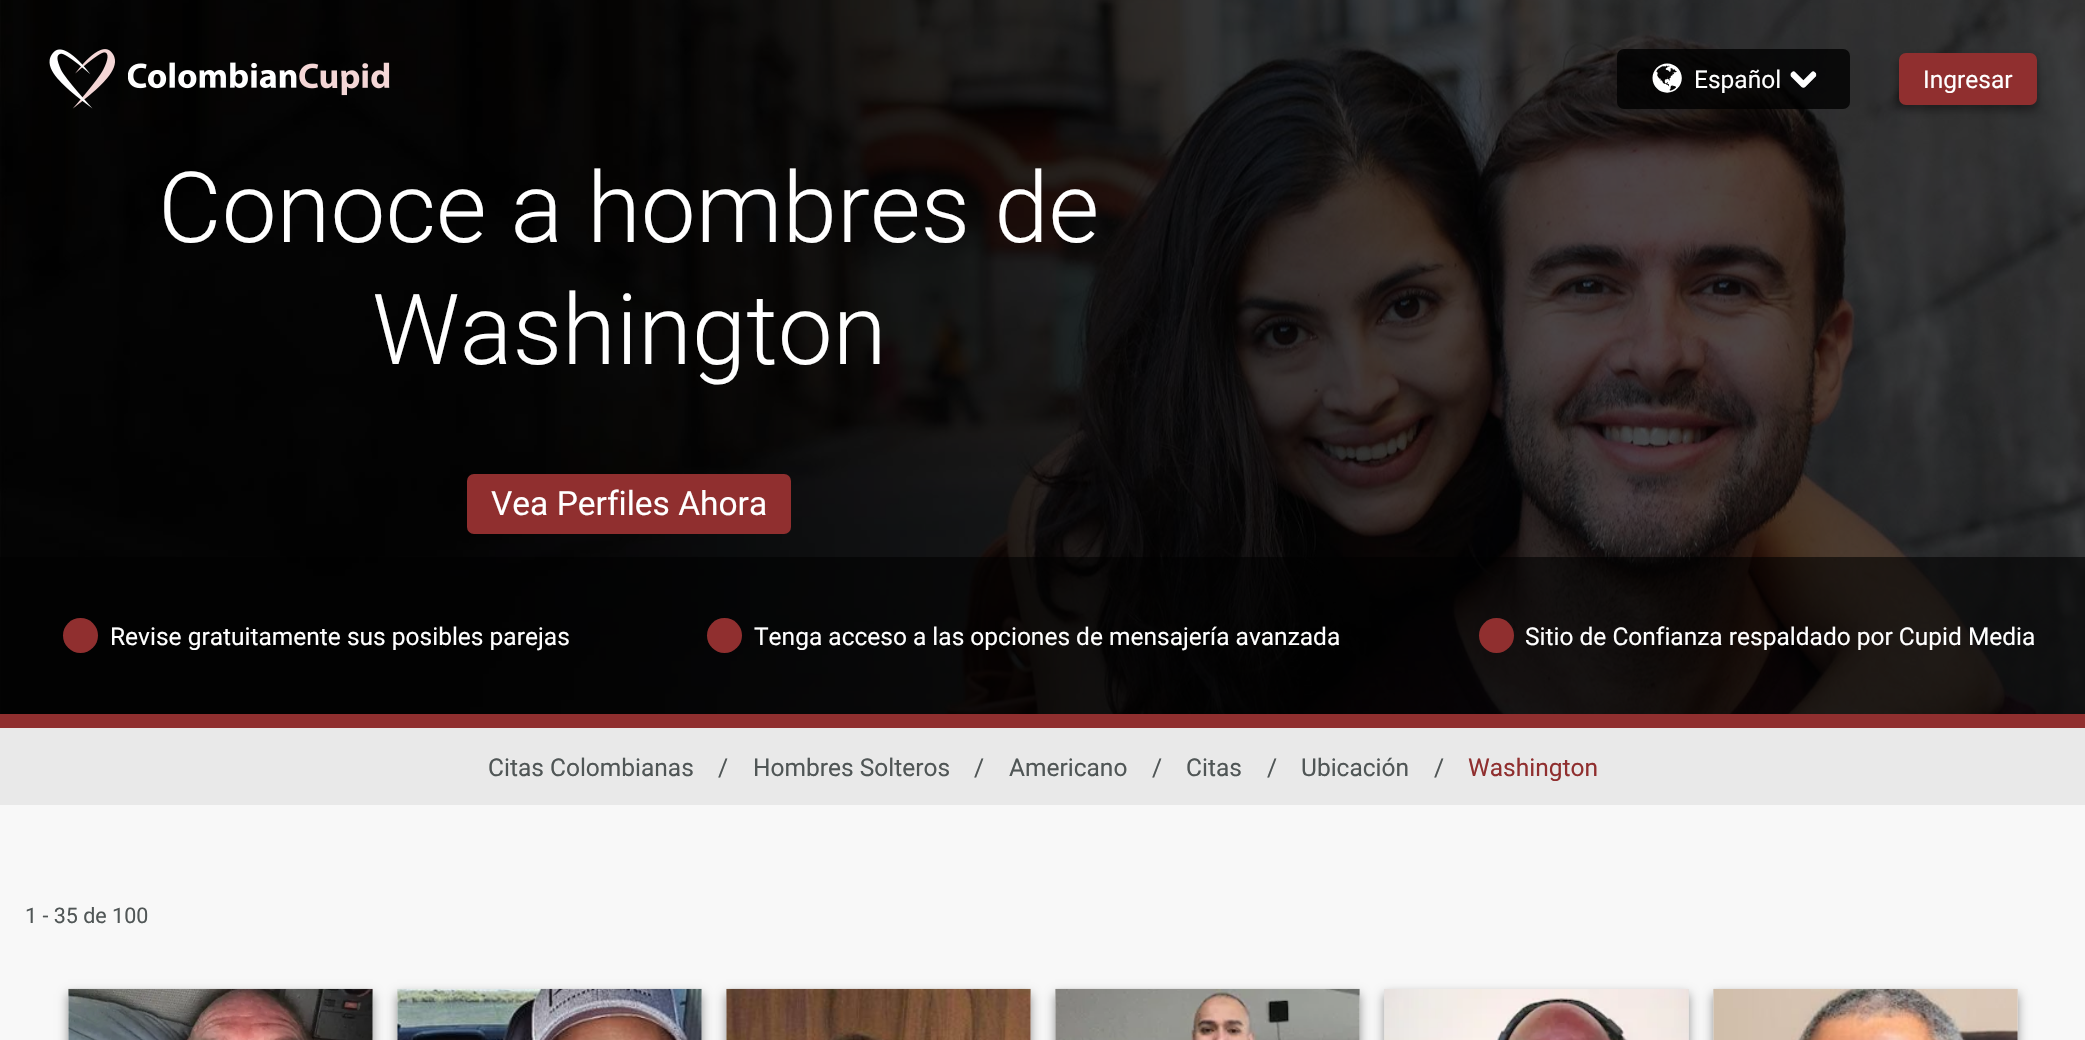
void draw(SkCanvas* canvas) {
	SkPaint paint;
	paint.setAntiAlias(true);
	canvas->clear(0xfff8f8f8);
	canvas->drawImageRect(SkImages::DeferredFromEncodedData(SkData::MakeFromFileName("img5.png")), SkRect::MakeXYWH(0, 0, 2085, 714), SkSamplingOptions());
	canvas->drawImageRect(SkImages::DeferredFromEncodedData(SkData::MakeFromFileName("img1.png")), SkRect::MakeXYWH(49, 49, 66, 60), SkSamplingOptions());
	canvas->drawImageRect(SkImages::DeferredFromEncodedData(SkData::MakeFromFileName("img2.png")), SkRect::MakeXYWH(128, 62, 262, 34), SkSamplingOptions());
	paint.setColor(0xcc000000);
	canvas->drawRoundRect(SkRect::MakeXYWH(1617, 49, 233, 60), 7, 7, paint);
	canvas->drawImageRect(SkImages::DeferredFromEncodedData(SkData::MakeFromFileName("img3.png")), SkRect::MakeXYWH(1652, 63, 30, 30), SkSamplingOptions());
	SkFont f1(fontMgr->matchFamilyStyle("Roboto", SkFontStyle::Normal()), 24.5);
	f1.setSubpixel(true);
	paint.setColor(0xffffffff);
	canvas->drawString("Español", 1694, 88, f1, paint);
	canvas->drawImageRect(SkImages::DeferredFromEncodedData(SkData::MakeFromFileName("img4.png")), SkRect::MakeXYWH(1790, 71, 27, 17), SkSamplingOptions());
	paint.setColor(0x66000000);
	paint.setMaskFilter(SkMaskFilter::MakeBlur(kNormal_SkBlurStyle, 5));
	canvas->drawRoundRect(SkRect::MakeXYWH(1899, 58, 138, 52), 7, 7, paint);
	paint.setMaskFilter(nullptr);
	paint.setColor(0xff902f2f);
	canvas->drawRoundRect(SkRect::MakeXYWH(1899, 53, 138, 52), 7, 7, paint);
	paint.setColor(0xffffffff);
	canvas->drawString("Ingresar", 1923, 88, f1, paint);
	SkFont f2(fontMgr->matchFamilyStyle("Roboto", SkFontStyle(300, SkFontStyle::kNormal_Width, SkFontStyle::kUpright_Slant)), 98);
	f2.setSubpixel(true);
	canvas->drawString("Conoce a hombres de", 158, 242, f2, paint);
	canvas->drawString("Washington", 372, 364, f2, paint);
	paint.setColor(0xff902f2f);
	canvas->drawRoundRect(SkRect::MakeXYWH(467, 474, 324, 60), 7, 7, paint);
	SkFont f3(fontMgr->matchFamilyStyle("Roboto", SkFontStyle::Normal()), 33.5);
	f3.setSubpixel(true);
	paint.setColor(0xffffffff);
	canvas->drawString("Vea Perfiles Ahora", 491, 515, f3, paint);
	paint.setColor(0x99000000);
	canvas->drawRect(SkRect::MakeXYWH(0, 557, 2085, 157), paint);
	paint.setColor(0xff902f2f);
	canvas->drawCircle(80.5, 635.5, 17.5, paint);
	paint.setColor(0xffffffff);
	canvas->drawString("Revise gratuitamente sus posibles parejas", 110, 645, f1, paint);
	paint.setColor(0xff902f2f);
	canvas->drawCircle(724.5, 635.5, 17.5, paint);
	paint.setColor(0xffffffff);
	canvas->drawString("Tenga acceso a las opciones de mensajería avanzada", 754, 645, f1, paint);
	paint.setColor(0xff902f2f);
	canvas->drawCircle(1496.5, 635.5, 17.5, paint);
	paint.setColor(0xffffffff);
	canvas->drawString("Sitio de Confianza respaldado por Cupid Media", 1525, 645, f1, paint);
	paint.setColor(0xff902f2f);
	canvas->drawRect(SkRect::MakeXYWH(0, 714, 2085, 14), paint);
	paint.setColor(0xffe9e9e9);
	canvas->drawRect(SkRect::MakeXYWH(0, 728, 2085, 77), paint);
	paint.setColor(0xff505656);
	canvas->drawString("Citas Colombianas", 488, 776, f1, paint);
	canvas->drawString("/", 718, 776, f1, paint);
	canvas->drawString("Hombres Solteros", 753, 776, f1, paint);
	canvas->drawString("/", 974, 776, f1, paint);
	canvas->drawString("Americano", 1009, 776, f1, paint);
	canvas->drawString("/", 1152, 776, f1, paint);
	canvas->drawString("Citas", 1186, 776, f1, paint);
	canvas->drawString("/", 1267, 776, f1, paint);
	canvas->drawString("Ubicación", 1301, 776, f1, paint);
	canvas->drawString("/", 1434, 776, f1, paint);
	paint.setColor(0xff902f2f);
	canvas->drawString("Washington", 1468, 776, f1, paint);
	SkFont f4(fontMgr->matchFamilyStyle("Roboto", SkFontStyle::Normal()), 21.5);
	f4.setSubpixel(true);
	paint.setColor(0xff505656);
	canvas->drawString("1 - 35 de 100", 25, 923, f4, paint);
	paint.setColor(0x66000000);
	paint.setMaskFilter(SkMaskFilter::MakeBlur(kNormal_SkBlurStyle, 5));
	canvas->drawRect(SkRect::MakeXYWH(68, 994, 305, 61), paint);
	paint.setMaskFilter(nullptr);
	paint.setColor(0xffe0e0e0);
	canvas->drawRect(SkRect::MakeXYWH(68, 989, 305, 51), paint);
	canvas->drawImageRect(SkImages::DeferredFromEncodedData(SkData::MakeFromFileName("img6.png")), SkRect::MakeXYWH(68, 988, 305, 52), SkSamplingOptions());
	paint.setColor(0x66000000);
	paint.setMaskFilter(SkMaskFilter::MakeBlur(kNormal_SkBlurStyle, 5));
	canvas->drawRect(SkRect::MakeXYWH(397, 994, 305, 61), paint);
	paint.setMaskFilter(nullptr);
	paint.setColor(0xffe0e0e0);
	canvas->drawRect(SkRect::MakeXYWH(397, 989, 305, 51), paint);
	canvas->drawImageRect(SkImages::DeferredFromEncodedData(SkData::MakeFromFileName("img7.png")), SkRect::MakeXYWH(397, 988, 305, 52), SkSamplingOptions());
	paint.setColor(0x66000000);
	paint.setMaskFilter(SkMaskFilter::MakeBlur(kNormal_SkBlurStyle, 5));
	canvas->drawRect(SkRect::MakeXYWH(726, 994, 305, 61), paint);
	paint.setMaskFilter(nullptr);
	paint.setColor(0xffe0e0e0);
	canvas->drawRect(SkRect::MakeXYWH(726, 989, 305, 51), paint);
	canvas->drawImageRect(SkImages::DeferredFromEncodedData(SkData::MakeFromFileName("img8.png")), SkRect::MakeXYWH(726, 988, 305, 52), SkSamplingOptions());
	paint.setColor(0x66000000);
	paint.setMaskFilter(SkMaskFilter::MakeBlur(kNormal_SkBlurStyle, 5));
	canvas->drawRect(SkRect::MakeXYWH(1055, 994, 305, 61), paint);
	paint.setMaskFilter(nullptr);
	paint.setColor(0xffe0e0e0);
	canvas->drawRect(SkRect::MakeXYWH(1055, 989, 305, 51), paint);
	canvas->drawImageRect(SkImages::DeferredFromEncodedData(SkData::MakeFromFileName("img9.png")), SkRect::MakeXYWH(1055, 988, 305, 52), SkSamplingOptions());
	paint.setColor(0x66000000);
	paint.setMaskFilter(SkMaskFilter::MakeBlur(kNormal_SkBlurStyle, 5));
	canvas->drawRect(SkRect::MakeXYWH(1384, 994, 305, 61), paint);
	paint.setMaskFilter(nullptr);
	paint.setColor(0xffe0e0e0);
	canvas->drawRect(SkRect::MakeXYWH(1384, 989, 305, 51), paint);
	canvas->drawImageRect(SkImages::DeferredFromEncodedData(SkData::MakeFromFileName("img10.png")), SkRect::MakeXYWH(1384, 989, 305, 51), SkSamplingOptions());
	paint.setColor(0x66000000);
	paint.setMaskFilter(SkMaskFilter::MakeBlur(kNormal_SkBlurStyle, 5));
	canvas->drawRect(SkRect::MakeXYWH(1713, 994, 305, 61), paint);
	paint.setMaskFilter(nullptr);
	paint.setColor(0xffe0e0e0);
	canvas->drawRect(SkRect::MakeXYWH(1713, 989, 305, 51), paint);
	canvas->drawImageRect(SkImages::DeferredFromEncodedData(SkData::MakeFromFileName("img11.png")), SkRect::MakeXYWH(1713, 988, 305, 52), SkSamplingOptions());
}
